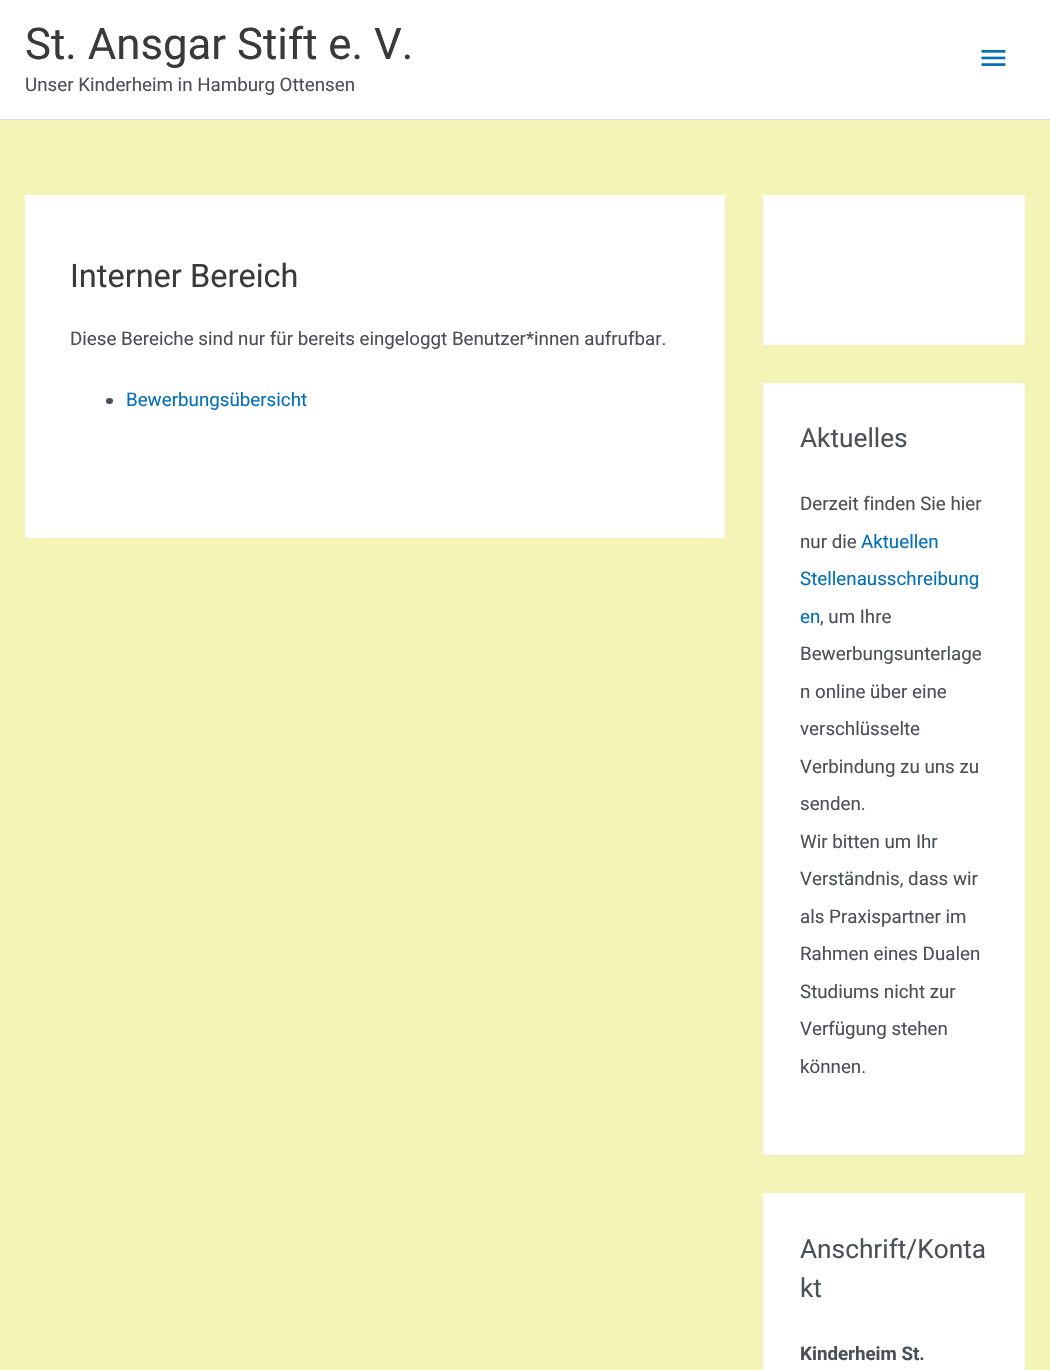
void draw(SkCanvas* canvas) {
	SkPaint paint;
	paint.setAntiAlias(true);
	canvas->clear(0xfff3f4b5);
	paint.setColor(0xffffffff);
	canvas->drawRect(SkRect::MakeXYWH(0, 0, 1050, 119), paint);
	paint.setColor(0xffdddddd);
	canvas->drawRect(SkRect::MakeXYWH(0, 119, 1050, 1), paint);
	SkFont f1(fontMgr->matchFamilyStyle("Roboto", SkFontStyle::Normal()), 43.75);
	f1.setSubpixel(true);
	paint.setColor(0xff3a3a3a);
	canvas->drawString("St. Ansgar Stift e. V.", 25, 59, f1, paint);
	SkFont f2(fontMgr->matchFamilyStyle("Roboto", SkFontStyle::Normal()), 18.75);
	f2.setSubpixel(true);
	paint.setColor(0xff4b4f58);
	canvas->drawString("Unser Kinderheim in Hamburg Ottensen", 25, 91, f2, paint);
	canvas->drawImageRect(SkImages::DeferredFromEncodedData(SkData::MakeFromFileName("img1.png")), SkRect::MakeXYWH(981, 50, 25, 16), SkSamplingOptions());
	paint.setColor(0xffffffff);
	canvas->drawRect(SkRect::MakeXYWH(25, 195, 700, 343), paint);
	SkFont f3(fontMgr->matchFamilyStyle("Roboto", SkFontStyle::Normal()), 32.5);
	f3.setSubpixel(true);
	paint.setColor(0xff3a3a3a);
	canvas->drawString("Interner Bereich", 70, 287, f3, paint);
	paint.setColor(0xff4b4f58);
	canvas->drawString("Diese Bereiche sind nur für bereits eingeloggt Benutzer*innen aufrufbar.", 70, 345, f2, paint);
	canvas->drawRoundRect(SkRect::MakeXYWH(106, 398, 7, 6), 3, 3, paint);
	paint.setColor(0xff0170b9);
	canvas->drawString("Bewerbungsübersicht", 126, 406, f2, paint);
	paint.setColor(0xffffffff);
	canvas->drawRect(SkRect::MakeXYWH(763, 195, 262, 150), paint);
	canvas->drawRect(SkRect::MakeXYWH(763, 383, 262, 772), paint);
	SkFont f4(fontMgr->matchFamilyStyle("Roboto", SkFontStyle::Normal()), 26.25);
	f4.setSubpixel(true);
	paint.setColor(0xff4b4f58);
	canvas->drawString("Aktuelles", 800, 447, f4, paint);
	canvas->drawString("Derzeit finden Sie hier", 800, 510, f2, paint);
	canvas->drawString("nur die", 800, 548, f2, paint);
	paint.setColor(0xff0170b9);
	canvas->drawString("Aktuellen", 861, 548, f2, paint);
	canvas->drawString("Stellenausschreibung", 800, 585, f2, paint);
	canvas->drawString("en", 800, 623, f2, paint);
	paint.setColor(0xff4b4f58);
	canvas->drawString(", um Ihre", 820, 623, f2, paint);
	canvas->drawString("Bewerbungsunterlage", 800, 660, f2, paint);
	canvas->drawString("n online über eine", 800, 698, f2, paint);
	canvas->drawString("verschlüsselte", 800, 735, f2, paint);
	canvas->drawString("Verbindung zu uns zu", 800, 773, f2, paint);
	canvas->drawString("senden.", 800, 810, f2, paint);
	canvas->drawString("Wir bitten um Ihr", 800, 848, f2, paint);
	canvas->drawString("Verständnis, dass wir", 800, 885, f2, paint);
	canvas->drawString("als Praxispartner im", 800, 923, f2, paint);
	canvas->drawString("Rahmen eines Dualen", 800, 960, f2, paint);
	canvas->drawString("Studiums nicht zur", 800, 998, f2, paint);
	canvas->drawString("Verfügung stehen", 800, 1035, f2, paint);
	canvas->drawString("können.", 800, 1073, f2, paint);
	paint.setColor(0xffffffff);
	canvas->drawRect(SkRect::MakeXYWH(763, 1193, 262, 177), paint);
	paint.setColor(0xff4b4f58);
	canvas->drawString("Anschrift/Konta", 800, 1258, f4, paint);
	canvas->drawString("kt", 800, 1297, f4, paint);
	SkFont f5(fontMgr->matchFamilyStyle("Roboto", SkFontStyle::Bold()), 18.75);
	f5.setSubpixel(true);
	canvas->drawString("Kinderheim St.", 800, 1360, f5, paint);
}
